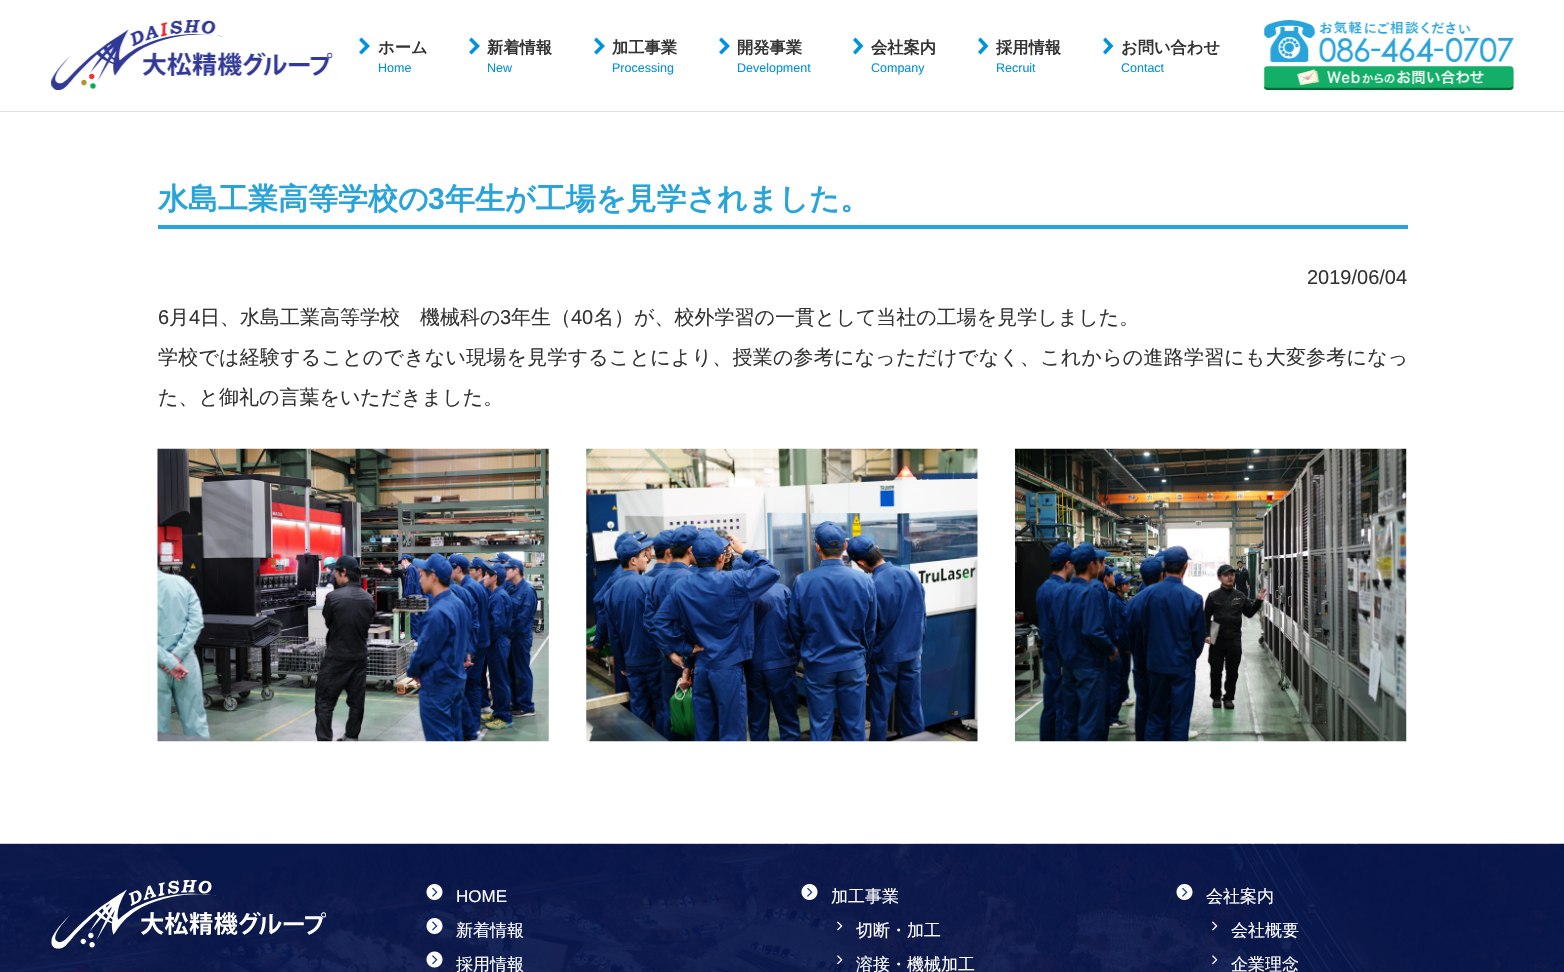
void draw(SkCanvas* canvas) {
	SkPaint paint;
	paint.setAntiAlias(true);
	auto spacedText = [&](const char* s, float x, float y, const SkFont& font, const SkPaint& ink, float letter, float word) {
		std::vector<SkGlyphID> glyphs(font.countText(s, strlen(s), SkTextEncoding::kUTF8));
		std::vector<float> xs(glyphs.size());
		font.textToGlyphs(s, strlen(s), SkTextEncoding::kUTF8, glyphs);
		font.getXPos(glyphs, xs, x);
		float extra = 0;
		for (size_t i = 0; i < glyphs.size(); i++) {
			xs[i] += extra;
			extra += letter + word * (glyphs[i] == font.unicharToGlyph(' '));
		}
		canvas->drawTextBlob(SkTextBlob::MakeFromPosHGlyphs(glyphs, xs, y, font), 0, 0, ink);
	};
	auto svgPath = [&](const char* data, bool evenOdd = false) {
		SkPath result = *SkParsePath::FromSVGString(data);
		if (evenOdd) result.setFillType(SkPathFillType::kEvenOdd);
		return result;
	};
	canvas->clear(0xffffffff);
	paint.setColor(0xffdfdfdf);
	canvas->drawRect(SkRect::MakeXYWH(0, 111, 1564, 1), paint);
	canvas->drawImageRect(SkImages::DeferredFromEncodedData(SkData::MakeFromFileName("img1.png")), SkRect::MakeXYWH(51, 20, 282, 70), SkSamplingOptions());
	paint.setColor(0xff0092db);
	canvas->drawPath(svgPath("M361.5 54.5L359 52L365 46L359 40L361.5 37.5L370 46Z"), paint);
	SkFont f1(fontMgr->matchFamilyStyle("WenQuanYi Zen Hei", SkFontStyle::Bold()), 16.25);
	f1.setSubpixel(true);
	paint.setColor(0xff333333);
	canvas->drawString("ホーム", 378, 53, f1, paint);
	SkFont f2(fontMgr->matchFamilyStyle("Liberation Sans", SkFontStyle::Normal()), 12.5);
	f2.setSubpixel(true);
	paint.setColor(0xff0092db);
	canvas->drawString("Home", 378, 72, f2, paint);
	canvas->drawPath(svgPath("M471.5 54.5L469 52L475 46L469 40L471.5 37.5L480 46Z"), paint);
	paint.setColor(0xff333333);
	canvas->drawString("新着情報", 487, 53, f1, paint);
	paint.setColor(0xff0092db);
	canvas->drawString("New", 487, 72, f2, paint);
	canvas->drawPath(svgPath("M596.5 54.5L594 52L600 46L594 40L596.5 37.5L605 46Z"), paint);
	paint.setColor(0xff333333);
	canvas->drawString("加工事業", 612, 53, f1, paint);
	paint.setColor(0xff0092db);
	canvas->drawString("Processing", 612, 72, f2, paint);
	canvas->drawPath(svgPath("M721.5 54.5L719 52L725 46L719 40L721.5 37.5L730 46Z"), paint);
	paint.setColor(0xff333333);
	canvas->drawString("開発事業", 737, 53, f1, paint);
	paint.setColor(0xff0092db);
	canvas->drawString("Development", 737, 72, f2, paint);
	canvas->drawPath(svgPath("M855.5 54.5L853 52L858.5 46L853 40L855.5 37.5L863.5 46Z"), paint);
	paint.setColor(0xff333333);
	canvas->drawString("会社案内", 871, 53, f1, paint);
	paint.setColor(0xff0092db);
	canvas->drawString("Company", 871, 72, f2, paint);
	canvas->drawPath(svgPath("M980.5 54.5L978 52L983.5 46L978 40L980.5 37.5L988.5 46Z"), paint);
	paint.setColor(0xff333333);
	canvas->drawString("採用情報", 996, 53, f1, paint);
	paint.setColor(0xff0092db);
	canvas->drawString("Recruit", 996, 72, f2, paint);
	canvas->drawPath(svgPath("M1105.5 54.5L1103 52L1108.5 46L1103 40L1105.5 37.5L1113.5 46Z"), paint);
	paint.setColor(0xff333333);
	canvas->drawString("お問い合わせ", 1121, 53, f1, paint);
	paint.setColor(0xff0092db);
	canvas->drawString("Contact", 1121, 72, f2, paint);
	canvas->drawImageRect(SkImages::DeferredFromEncodedData(SkData::MakeFromFileName("img2.png")), SkRect::MakeXYWH(1264, 20, 250, 70), SkSamplingOptions());
	paint.setColor(0xff29a4db);
	canvas->drawRect(SkRect::MakeXYWH(158, 225, 1250, 4), paint);
	SkFont f3(fontMgr->matchFamilyStyle("WenQuanYi Zen Hei", SkFontStyle::Bold()), 30);
	f3.setSubpixel(true);
	canvas->drawString("水島工業高等学校の", 158, 209, f3, paint);
	SkFont f4(fontMgr->matchFamilyStyle("Liberation Sans", SkFontStyle::Bold()), 30);
	f4.setSubpixel(true);
	canvas->drawString("3", 428, 209, f4, paint);
	canvas->drawString("年生が工場を見学されました。", 445, 209, f3, paint);
	SkFont f5(fontMgr->matchFamilyStyle("Liberation Sans", SkFontStyle::Normal()), 20);
	f5.setSubpixel(true);
	paint.setColor(0xff333333);
	canvas->drawString("2019/06/04", 1307, 284, f5, paint);
	canvas->drawString("6", 158, 324, f5, paint);
	SkFont f6(fontMgr->matchFamilyStyle("WenQuanYi Zen Hei", SkFontStyle(500, SkFontStyle::kNormal_Width, SkFontStyle::kUpright_Slant)), 20);
	f6.setSubpixel(true);
	canvas->drawString("月", 169, 324, f6, paint);
	canvas->drawString("4", 189, 324, f5, paint);
	canvas->drawString("日、水島工業高等学校　機械科の", 200, 324, f6, paint);
	canvas->drawString("3", 500, 324, f5, paint);
	canvas->drawString("年生（", 511, 324, f6, paint);
	canvas->drawString("40", 571, 324, f5, paint);
	canvas->drawString("名）が、校外学習の一貫として当社の工場を見学しました。", 594, 324, f6, paint);
	spacedText("学校では経験することのできない現場を見学することにより、授業の参考になっただけでなく、これからの進路学習にも大変参考になっ", 158, 364, f6, paint, 0.2, 0);
	canvas->drawString("た、と御礼の言葉をいただきました。", 158, 404, f6, paint);
	canvas->drawImageRect(SkImages::DeferredFromEncodedData(SkData::MakeFromFileName("img3.png")), SkRect::MakeXYWH(157, 448, 392, 294), SkSamplingOptions());
	canvas->drawImageRect(SkImages::DeferredFromEncodedData(SkData::MakeFromFileName("img4.png")), SkRect::MakeXYWH(586, 448, 392, 294), SkSamplingOptions());
	canvas->drawImageRect(SkImages::DeferredFromEncodedData(SkData::MakeFromFileName("img5.png")), SkRect::MakeXYWH(1015, 448, 392, 294), SkSamplingOptions());
	canvas->drawImageRect(SkImages::DeferredFromEncodedData(SkData::MakeFromFileName("img6.png")), SkRect::MakeXYWH(0, 843, 1564, 129), SkSamplingOptions());
	canvas->drawImageRect(SkImages::DeferredFromEncodedData(SkData::MakeFromFileName("img7.png")), SkRect::MakeXYWH(51, 880, 275, 69), SkSamplingOptions());
	canvas->drawImageRect(SkImages::DeferredFromEncodedData(SkData::MakeFromFileName("img8.png")), SkRect::MakeXYWH(426, 884, 17, 16), SkSamplingOptions());
	SkFont f7(fontMgr->matchFamilyStyle("Liberation Sans", SkFontStyle::Normal()), 17);
	f7.setSubpixel(true);
	paint.setColor(0xffffffff);
	canvas->drawString("HOME", 456, 902, f7, paint);
	canvas->drawImageRect(SkImages::DeferredFromEncodedData(SkData::MakeFromFileName("img9.png")), SkRect::MakeXYWH(426, 918, 17, 16), SkSamplingOptions());
	SkFont f8(fontMgr->matchFamilyStyle("WenQuanYi Zen Hei", SkFontStyle(500, SkFontStyle::kNormal_Width, SkFontStyle::kUpright_Slant)), 17);
	f8.setSubpixel(true);
	canvas->drawString("新着情報", 456, 936, f8, paint);
	canvas->drawImageRect(SkImages::DeferredFromEncodedData(SkData::MakeFromFileName("img10.png")), SkRect::MakeXYWH(426, 951, 17, 17), SkSamplingOptions());
	canvas->drawString("採用情報", 456, 970, f8, paint);
	canvas->drawImageRect(SkImages::DeferredFromEncodedData(SkData::MakeFromFileName("img11.png")), SkRect::MakeXYWH(801, 884, 17, 16), SkSamplingOptions());
	canvas->drawString("加工事業", 831, 902, f8, paint);
	canvas->drawImageRect(SkImages::DeferredFromEncodedData(SkData::MakeFromFileName("img12.png")), SkRect::MakeXYWH(837, 921, 6, 10), SkSamplingOptions());
	canvas->drawString("切断・加工", 856, 936, f8, paint);
	canvas->drawImageRect(SkImages::DeferredFromEncodedData(SkData::MakeFromFileName("img13.png")), SkRect::MakeXYWH(837, 955, 6, 10), SkSamplingOptions());
	canvas->drawString("溶接・機械加工", 856, 970, f8, paint);
	canvas->drawImageRect(SkImages::DeferredFromEncodedData(SkData::MakeFromFileName("img14.png")), SkRect::MakeXYWH(1176, 884, 17, 16), SkSamplingOptions());
	canvas->drawString("会社案内", 1206, 902, f8, paint);
	canvas->drawImageRect(SkImages::DeferredFromEncodedData(SkData::MakeFromFileName("img15.png")), SkRect::MakeXYWH(1212, 921, 6, 10), SkSamplingOptions());
	canvas->drawString("会社概要", 1231, 936, f8, paint);
	canvas->drawImageRect(SkImages::DeferredFromEncodedData(SkData::MakeFromFileName("img16.png")), SkRect::MakeXYWH(1212, 955, 6, 10), SkSamplingOptions());
	canvas->drawString("企業理念", 1231, 970, f8, paint);
}
